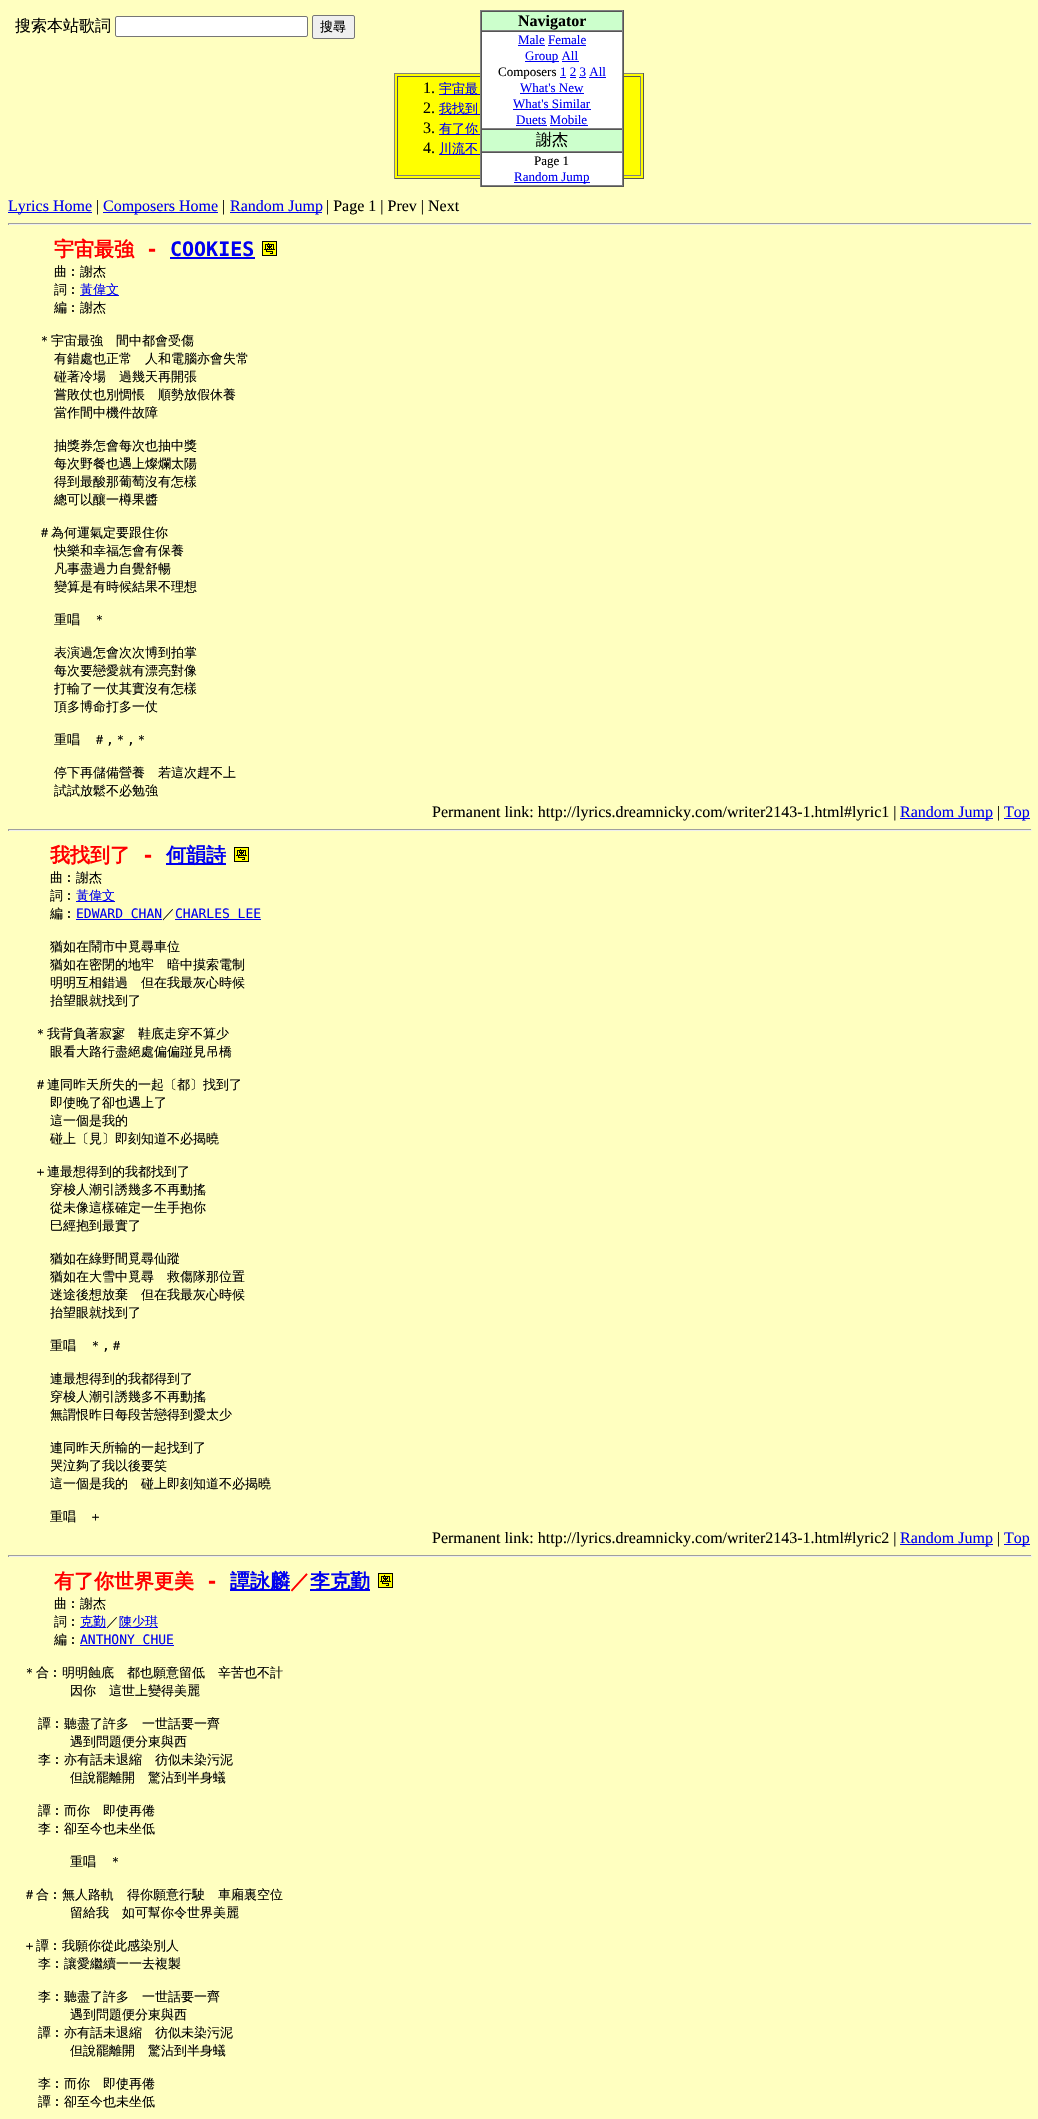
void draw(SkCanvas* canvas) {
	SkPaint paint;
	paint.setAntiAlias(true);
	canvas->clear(0xffffffc0);
	SkFont f1(fontMgr->matchFamilyStyle("WenQuanYi Zen Hei", SkFontStyle(500, SkFontStyle::kNormal_Width, SkFontStyle::kUpright_Slant)), 16);
	f1.setSubpixel(true);
	paint.setColor(0xff000000);
	canvas->drawString("搜索本站歌詞", 15, 31, f1, paint);
	paint.setColor(0xffffffff);
	canvas->drawRoundRect(SkRect::MakeXYWH(115.5, 16.5, 192, 20), 1.5, 1.5, paint);
	paint.setStroke(true);
	paint.setStrokeWidth(1);
	paint.setColor(0xff767676);
	canvas->drawRoundRect(SkRect::MakeXYWH(115.5, 16.5, 192, 20), 1.5, 1.5, paint);
	paint.setStroke(false);
	paint.setColor(0xffefefef);
	canvas->drawRoundRect(SkRect::MakeXYWH(312.5, 15.5, 42, 23), 1.5, 1.5, paint);
	paint.setStroke(true);
	paint.setColor(0xff767676);
	canvas->drawRoundRect(SkRect::MakeXYWH(312.5, 15.5, 42, 23), 1.5, 1.5, paint);
	SkFont f2(fontMgr->matchFamilyStyle("WenQuanYi Zen Hei", SkFontStyle(500, SkFontStyle::kNormal_Width, SkFontStyle::kUpright_Slant)), 13);
	f2.setSubpixel(true);
	paint.setStroke(false);
	paint.setColor(0xff000000);
	canvas->drawString("搜尋", 320, 31, f2, paint);
	paint.setColor(0xff808080);
	canvas->drawRect(SkRect::MakeXYWH(480, 10, 144, 1), paint);
	paint.setColor(0xffffff00);
	canvas->drawRect(SkRect::MakeXYWH(395, 74, 248, 104), paint);
	paint.setColor(0xff808080);
	canvas->drawRect(SkRect::MakeXYWH(394, 73, 250, 1), paint);
	paint.setColor(0xff555555);
	canvas->drawRect(SkRect::MakeXYWH(643, 73, 1, 106), paint);
	canvas->drawRect(SkRect::MakeXYWH(394, 178, 250, 1), paint);
	canvas->drawRect(SkRect::MakeXYWH(397, 76, 244, 1), paint);
	paint.setColor(0xff808080);
	canvas->drawRect(SkRect::MakeXYWH(640, 76, 1, 100), paint);
	canvas->drawRect(SkRect::MakeXYWH(397, 175, 244, 1), paint);
	paint.setColor(0xff555555);
	canvas->drawRect(SkRect::MakeXYWH(623, 10, 1, 177), paint);
	canvas->drawRect(SkRect::MakeXYWH(480, 186, 144, 1), paint);
	paint.setColor(0xff808080);
	canvas->drawRect(SkRect::MakeXYWH(480, 10, 1, 177), paint);
	paint.setColor(0xffccffcc);
	canvas->drawRect(SkRect::MakeXYWH(482, 12, 140, 18), paint);
	paint.setColor(0xff555555);
	canvas->drawRect(SkRect::MakeXYWH(481, 11, 142, 1), paint);
	paint.setColor(0xff808080);
	canvas->drawRect(SkRect::MakeXYWH(622, 11, 1, 20), paint);
	canvas->drawRect(SkRect::MakeXYWH(481, 30, 142, 1), paint);
	paint.setColor(0xff555555);
	canvas->drawRect(SkRect::MakeXYWH(481, 11, 1, 20), paint);
	SkFont f3(fontMgr->matchFamilyStyle("Liberation Serif", SkFontStyle::Bold()), 16);
	f3.setSubpixel(true);
	paint.setColor(0xff000000);
	canvas->drawString("Navigator", 518, 26, f3, paint);
	paint.setColor(0xffffffff);
	canvas->drawRect(SkRect::MakeXYWH(482, 32, 140, 96), paint);
	paint.setColor(0xff555555);
	canvas->drawRect(SkRect::MakeXYWH(481, 31, 142, 1), paint);
	paint.setColor(0xff808080);
	canvas->drawRect(SkRect::MakeXYWH(622, 31, 1, 98), paint);
	canvas->drawRect(SkRect::MakeXYWH(481, 128, 142, 1), paint);
	paint.setColor(0xff555555);
	canvas->drawRect(SkRect::MakeXYWH(481, 31, 1, 98), paint);
	SkFont f4(fontMgr->matchFamilyStyle("Liberation Serif", SkFontStyle::Normal()), 13);
	f4.setSubpixel(true);
	paint.setColor(0xff0000ee);
	canvas->drawString("Male Female", 518, 44, f4, paint);
	canvas->drawRect(SkRect::MakeXYWH(518, 45, 27, 1), paint);
	canvas->drawRect(SkRect::MakeXYWH(548, 45, 38, 1), paint);
	canvas->drawRect(SkRect::MakeXYWH(525, 61, 34, 1), paint);
	canvas->drawString("Group All", 525, 60, f4, paint);
	canvas->drawRect(SkRect::MakeXYWH(562, 61, 17, 1), paint);
	paint.setColor(0xff000000);
	canvas->drawString("Composers", 498, 76, f4, paint);
	paint.setColor(0xff0000ee);
	canvas->drawString("1 2 3 All", 560, 76, f4, paint);
	canvas->drawRect(SkRect::MakeXYWH(560, 77, 6, 1), paint);
	canvas->drawRect(SkRect::MakeXYWH(570, 77, 6, 1), paint);
	canvas->drawRect(SkRect::MakeXYWH(579, 77, 7, 1), paint);
	canvas->drawRect(SkRect::MakeXYWH(589, 77, 17, 1), paint);
	canvas->drawString("What's New", 520, 92, f4, paint);
	canvas->drawRect(SkRect::MakeXYWH(520, 93, 64, 1), paint);
	canvas->drawString("What's Similar", 513, 108, f4, paint);
	canvas->drawRect(SkRect::MakeXYWH(513, 109, 78, 1), paint);
	canvas->drawString("Duets Mobile", 516, 124, f4, paint);
	canvas->drawRect(SkRect::MakeXYWH(516, 125, 31, 1), paint);
	canvas->drawRect(SkRect::MakeXYWH(550, 125, 38, 1), paint);
	paint.setColor(0xffccffcc);
	canvas->drawRect(SkRect::MakeXYWH(482, 130, 140, 21), paint);
	paint.setColor(0xff555555);
	canvas->drawRect(SkRect::MakeXYWH(481, 129, 142, 1), paint);
	paint.setColor(0xff808080);
	canvas->drawRect(SkRect::MakeXYWH(622, 129, 1, 23), paint);
	canvas->drawRect(SkRect::MakeXYWH(481, 151, 142, 1), paint);
	paint.setColor(0xff555555);
	canvas->drawRect(SkRect::MakeXYWH(481, 129, 1, 23), paint);
	paint.setColor(0xff000000);
	canvas->drawString("謝杰", 536, 145, f1, paint);
	paint.setColor(0xffffffff);
	canvas->drawRect(SkRect::MakeXYWH(482, 153, 140, 32), paint);
	paint.setColor(0xff555555);
	canvas->drawRect(SkRect::MakeXYWH(481, 152, 142, 1), paint);
	paint.setColor(0xff808080);
	canvas->drawRect(SkRect::MakeXYWH(622, 152, 1, 34), paint);
	canvas->drawRect(SkRect::MakeXYWH(481, 185, 142, 1), paint);
	paint.setColor(0xff555555);
	canvas->drawRect(SkRect::MakeXYWH(481, 152, 1, 34), paint);
	paint.setColor(0xff000000);
	canvas->drawString("Page 1", 534, 165, f4, paint);
	paint.setColor(0xff0000ee);
	canvas->drawRect(SkRect::MakeXYWH(514, 182, 76, 1), paint);
	canvas->drawString("Random Jump", 514, 181, f4, paint);
	paint.setColor(0xff808080);
	canvas->drawRect(SkRect::MakeXYWH(394, 73, 1, 106), paint);
	paint.setColor(0xff555555);
	canvas->drawRect(SkRect::MakeXYWH(397, 76, 1, 100), paint);
	SkFont f5(fontMgr->matchFamilyStyle("Liberation Serif", SkFontStyle::Normal()), 16);
	f5.setSubpixel(true);
	paint.setColor(0xff000000);
	canvas->drawString("1.", 423, 93, f5, paint);
	paint.setColor(0xff0000ee);
	canvas->drawRect(SkRect::MakeXYWH(439, 94, 41, 1), paint);
	canvas->drawString("宇宙最", 439, 93, f2, paint);
	paint.setColor(0xff000000);
	canvas->drawString("2.", 423, 113, f5, paint);
	paint.setColor(0xff0000ee);
	canvas->drawRect(SkRect::MakeXYWH(439, 114, 41, 1), paint);
	canvas->drawString("我找到", 439, 113, f2, paint);
	paint.setColor(0xff000000);
	canvas->drawString("3.", 423, 133, f5, paint);
	paint.setColor(0xff0000ee);
	canvas->drawRect(SkRect::MakeXYWH(439, 134, 41, 1), paint);
	canvas->drawString("有了你", 439, 133, f2, paint);
	paint.setColor(0xff000000);
	canvas->drawString("4.", 423, 153, f5, paint);
	paint.setColor(0xff0000ee);
	canvas->drawRect(SkRect::MakeXYWH(439, 154, 41, 1), paint);
	canvas->drawString("川流不", 439, 153, f2, paint);
	canvas->drawRect(SkRect::MakeXYWH(8, 212, 84, 1), paint);
	canvas->drawString("Lyrics Home", 8, 211, f5, paint);
	paint.setColor(0xff000000);
	canvas->drawString("|", 96, 211, f5, paint);
	paint.setColor(0xff0000ee);
	canvas->drawRect(SkRect::MakeXYWH(103, 212, 115, 1), paint);
	canvas->drawString("Composers Home", 103, 211, f5, paint);
	paint.setColor(0xff000000);
	canvas->drawString("|", 222, 211, f5, paint);
	paint.setColor(0xff0000ee);
	canvas->drawRect(SkRect::MakeXYWH(230, 212, 92, 1), paint);
	canvas->drawString("Random Jump", 230, 211, f5, paint);
	paint.setColor(0xff000000);
	canvas->drawString("| Page 1 | Prev | Next", 326, 211, f5, paint);
	paint.setColor(0xff9f9f9f);
	canvas->drawRect(SkRect::MakeXYWH(8, 223, 1024, 1), paint);
	paint.setColor(0xffeeeeee);
	canvas->drawRect(SkRect::MakeXYWH(1031, 223, 1, 2), paint);
	canvas->drawRect(SkRect::MakeXYWH(8, 224, 1024, 1), paint);
	paint.setColor(0xff9f9f9f);
	canvas->drawRect(SkRect::MakeXYWH(8, 223, 1, 2), paint);
	SkFont f6(fontMgr->matchFamilyStyle("WenQuanYi Zen Hei", SkFontStyle::Bold()), 20);
	f6.setSubpixel(true);
	paint.setColor(0xffff0000);
	canvas->drawString("宇宙最強", 54, 256, f6, paint);
	SkFont f7(fontMgr->matchFamilyStyle("DejaVu Sans Mono", SkFontStyle::Bold()), 20);
	f7.setSubpixel(true);
	canvas->drawString("-", 146, 256, f7, paint);
	paint.setColor(0xff0000ee);
	canvas->drawString("COOKIES", 170, 256, f7, paint);
	canvas->drawRect(SkRect::MakeXYWH(170, 257, 85, 2), paint);
	canvas->drawImageRect(SkImages::DeferredFromEncodedData(SkData::MakeFromFileName("img1.png")), SkRect::MakeXYWH(262, 241, 15, 15), SkSamplingOptions());
	paint.setColor(0xff000000);
	canvas->drawString("曲︰謝杰", 54, 276, f2, paint);
	canvas->drawString("詞︰", 54, 294, f2, paint);
	paint.setColor(0xff0000ee);
	canvas->drawRect(SkRect::MakeXYWH(80, 295, 39, 1), paint);
	canvas->drawString("黃偉文", 80, 294, f2, paint);
	paint.setColor(0xff000000);
	canvas->drawString("編︰謝杰", 54, 312, f2, paint);
	canvas->drawString("＊宇宙最強　間中都會受傷", 38, 345, f2, paint);
	canvas->drawString("有錯處也正常　人和電腦亦會失常", 54, 363, f2, paint);
	canvas->drawString("碰著冷場　過幾天再開張", 54, 381, f2, paint);
	canvas->drawString("嘗敗仗也別惆悵　順勢放假休養", 54, 399, f2, paint);
	canvas->drawString("當作間中機件故障", 54, 417, f2, paint);
	canvas->drawString("抽獎券怎會每次也抽中獎", 54, 450, f2, paint);
	canvas->drawString("每次野餐也遇上燦爛太陽", 54, 468, f2, paint);
	canvas->drawString("得到最酸那葡萄沒有怎樣", 54, 486, f2, paint);
	canvas->drawString("總可以釀一樽果醬", 54, 504, f2, paint);
	canvas->drawString("＃為何運氣定要跟住你", 38, 537, f2, paint);
	canvas->drawString("快樂和幸福怎會有保養", 54, 555, f2, paint);
	canvas->drawString("凡事盡過力自覺舒暢", 54, 573, f2, paint);
	canvas->drawString("變算是有時候結果不理想", 54, 591, f2, paint);
	canvas->drawString("重唱　＊", 54, 624, f2, paint);
	canvas->drawString("表演過怎會次次博到拍掌", 54, 657, f2, paint);
	canvas->drawString("每次要戀愛就有漂亮對像", 54, 675, f2, paint);
	canvas->drawString("打輸了一仗其實沒有怎樣", 54, 693, f2, paint);
	canvas->drawString("頂多博命打多一仗", 54, 711, f2, paint);
	canvas->drawString("重唱　＃", 54, 744, f2, paint);
	canvas->drawString("＊", 114, 744, f2, paint);
	canvas->drawString("＊", 135, 744, f2, paint);
	SkFont f8(fontMgr->matchFamilyStyle("DejaVu Sans Mono", SkFontStyle::Normal()), 13);
	f8.setSubpixel(true);
	canvas->drawString(",", 106, 744, f8, paint);
	canvas->drawString(",", 127, 744, f8, paint);
	canvas->drawString("停下再儲備營養　若這次趕不上", 54, 777, f2, paint);
	canvas->drawString("試試放鬆不必勉強", 54, 795, f2, paint);
	canvas->drawString("Permanent link: http://lyrics.dreamnicky.com/writer2143-1.html#lyric1 |", 432, 817, f5, paint);
	paint.setColor(0xff0000ee);
	canvas->drawRect(SkRect::MakeXYWH(900, 818, 93, 1), paint);
	canvas->drawString("Random Jump", 900, 817, f5, paint);
	paint.setColor(0xff000000);
	canvas->drawString("|", 997, 817, f5, paint);
	paint.setColor(0xff0000ee);
	canvas->drawRect(SkRect::MakeXYWH(1004, 818, 26, 1), paint);
	canvas->drawString("Top", 1004, 817, f5, paint);
	paint.setColor(0xff9f9f9f);
	canvas->drawRect(SkRect::MakeXYWH(8, 829, 1024, 1), paint);
	paint.setColor(0xffeeeeee);
	canvas->drawRect(SkRect::MakeXYWH(1031, 829, 1, 2), paint);
	canvas->drawRect(SkRect::MakeXYWH(8, 830, 1024, 1), paint);
	paint.setColor(0xff9f9f9f);
	canvas->drawRect(SkRect::MakeXYWH(8, 829, 1, 2), paint);
	paint.setColor(0xffff0000);
	canvas->drawString("我找到了", 50, 862, f6, paint);
	canvas->drawString("-", 142, 862, f7, paint);
	paint.setColor(0xff0000ee);
	canvas->drawRect(SkRect::MakeXYWH(166, 863, 60, 2), paint);
	canvas->drawString("何韻詩", 166, 862, f6, paint);
	canvas->drawImageRect(SkImages::DeferredFromEncodedData(SkData::MakeFromFileName("img1.png")), SkRect::MakeXYWH(234, 847, 15, 15), SkSamplingOptions());
	paint.setColor(0xff000000);
	canvas->drawString("曲︰謝杰", 50, 882, f2, paint);
	canvas->drawString("詞︰", 50, 900, f2, paint);
	paint.setColor(0xff0000ee);
	canvas->drawRect(SkRect::MakeXYWH(76, 901, 39, 1), paint);
	canvas->drawString("黃偉文", 76, 900, f2, paint);
	paint.setColor(0xff000000);
	canvas->drawString("編︰", 50, 918, f2, paint);
	paint.setColor(0xff0000ee);
	canvas->drawString("EDWARD CHAN", 76, 918, f8, paint);
	canvas->drawRect(SkRect::MakeXYWH(76, 919, 86, 1), paint);
	paint.setColor(0xff000000);
	canvas->drawString("／", 162, 918, f2, paint);
	paint.setColor(0xff0000ee);
	canvas->drawString("CHARLES LEE", 175, 918, f8, paint);
	canvas->drawRect(SkRect::MakeXYWH(175, 919, 86, 1), paint);
	paint.setColor(0xff000000);
	canvas->drawString("猶如在鬧市中覓尋車位", 50, 951, f2, paint);
	canvas->drawString("猶如在密閉的地牢　暗中摸索電制", 50, 969, f2, paint);
	canvas->drawString("明明互相錯過　但在我最灰心時候", 50, 987, f2, paint);
	canvas->drawString("抬望眼就找到了", 50, 1005, f2, paint);
	canvas->drawString("＊我背負著寂寥　鞋底走穿不算少", 34, 1038, f2, paint);
	canvas->drawString("眼看大路行盡絕處偏偏踫見吊橋", 50, 1056, f2, paint);
	canvas->drawString("＃連同昨天所失的一起〔都〕找到了", 34, 1089, f2, paint);
	canvas->drawString("即使晚了卻也遇上了", 50, 1107, f2, paint);
	canvas->drawString("這一個是我的", 50, 1125, f2, paint);
	canvas->drawString("碰上〔見〕即刻知道不必揭曉", 50, 1143, f2, paint);
	canvas->drawString("＋連最想得到的我都找到了", 34, 1176, f2, paint);
	canvas->drawString("穿梭人潮引誘幾多不再動搖", 50, 1194, f2, paint);
	canvas->drawString("從未像這樣確定一生手抱你", 50, 1212, f2, paint);
	canvas->drawString("巳經抱到最實了", 50, 1230, f2, paint);
	canvas->drawString("猶如在綠野間覓尋仙蹤", 50, 1263, f2, paint);
	canvas->drawString("猶如在大雪中覓尋　救傷隊那位置", 50, 1281, f2, paint);
	canvas->drawString("迷途後想放棄　但在我最灰心時候", 50, 1299, f2, paint);
	canvas->drawString("抬望眼就找到了", 50, 1317, f2, paint);
	canvas->drawString("重唱　＊", 50, 1350, f2, paint);
	canvas->drawString(",", 102, 1350, f8, paint);
	canvas->drawString("＃", 110, 1350, f2, paint);
	canvas->drawString("連最想得到的我都得到了", 50, 1383, f2, paint);
	canvas->drawString("穿梭人潮引誘幾多不再動搖", 50, 1401, f2, paint);
	canvas->drawString("無謂恨昨日每段苦戀得到愛太少", 50, 1419, f2, paint);
	canvas->drawString("連同昨天所輸的一起找到了", 50, 1452, f2, paint);
	canvas->drawString("哭泣夠了我以後要笑", 50, 1470, f2, paint);
	canvas->drawString("這一個是我的　碰上即刻知道不必揭曉", 50, 1488, f2, paint);
	canvas->drawString("重唱　＋", 50, 1521, f2, paint);
	canvas->drawString("Permanent link: http://lyrics.dreamnicky.com/writer2143-1.html#lyric2 |", 432, 1543, f5, paint);
	paint.setColor(0xff0000ee);
	canvas->drawRect(SkRect::MakeXYWH(900, 1544, 93, 1), paint);
	canvas->drawString("Random Jump", 900, 1543, f5, paint);
	paint.setColor(0xff000000);
	canvas->drawString("|", 997, 1543, f5, paint);
	paint.setColor(0xff0000ee);
	canvas->drawRect(SkRect::MakeXYWH(1004, 1544, 26, 1), paint);
	canvas->drawString("Top", 1004, 1543, f5, paint);
	paint.setColor(0xff9f9f9f);
	canvas->drawRect(SkRect::MakeXYWH(8, 1555, 1024, 1), paint);
	paint.setColor(0xffeeeeee);
	canvas->drawRect(SkRect::MakeXYWH(1031, 1555, 1, 2), paint);
	canvas->drawRect(SkRect::MakeXYWH(8, 1556, 1024, 1), paint);
	paint.setColor(0xff9f9f9f);
	canvas->drawRect(SkRect::MakeXYWH(8, 1555, 1, 2), paint);
	paint.setColor(0xffff0000);
	canvas->drawString("有了你世界更美", 54, 1588, f6, paint);
	canvas->drawString("-", 206, 1588, f7, paint);
	paint.setColor(0xff0000ee);
	canvas->drawRect(SkRect::MakeXYWH(230, 1589, 60, 2), paint);
	canvas->drawString("譚詠麟", 230, 1588, f6, paint);
	paint.setColor(0xffff0000);
	canvas->drawString("／", 290, 1588, f6, paint);
	paint.setColor(0xff0000ee);
	canvas->drawRect(SkRect::MakeXYWH(310, 1589, 60, 2), paint);
	canvas->drawString("李克勤", 310, 1588, f6, paint);
	canvas->drawImageRect(SkImages::DeferredFromEncodedData(SkData::MakeFromFileName("img1.png")), SkRect::MakeXYWH(378, 1573, 15, 15), SkSamplingOptions());
	paint.setColor(0xff000000);
	canvas->drawString("曲︰謝杰", 54, 1608, f2, paint);
	canvas->drawString("詞︰", 54, 1626, f2, paint);
	paint.setColor(0xff0000ee);
	canvas->drawRect(SkRect::MakeXYWH(80, 1627, 26, 1), paint);
	canvas->drawString("克勤", 80, 1626, f2, paint);
	paint.setColor(0xff000000);
	canvas->drawString("／", 106, 1626, f2, paint);
	paint.setColor(0xff0000ee);
	canvas->drawRect(SkRect::MakeXYWH(119, 1627, 39, 1), paint);
	canvas->drawString("陳少琪", 119, 1626, f2, paint);
	paint.setColor(0xff000000);
	canvas->drawString("編︰", 54, 1644, f2, paint);
	paint.setColor(0xff0000ee);
	canvas->drawString("ANTHONY CHUE", 80, 1644, f8, paint);
	canvas->drawRect(SkRect::MakeXYWH(80, 1645, 94, 1), paint);
	paint.setColor(0xff000000);
	canvas->drawString("＊合︰明明蝕底　都也願意留低　辛苦也不計", 23, 1677, f2, paint);
	canvas->drawString("因你　這世上變得美麗", 70, 1695, f2, paint);
	canvas->drawString("譚︰聽盡了許多　一世話要一齊", 38, 1728, f2, paint);
	canvas->drawString("遇到問題便分東與西", 70, 1746, f2, paint);
	canvas->drawString("李︰亦有話未退縮　彷似未染污泥", 38, 1764, f2, paint);
	canvas->drawString("但說罷離開　驚沾到半身蟻", 70, 1782, f2, paint);
	canvas->drawString("譚︰而你　即使再倦", 38, 1815, f2, paint);
	canvas->drawString("李︰卻至今也未坐低", 38, 1833, f2, paint);
	canvas->drawString("重唱　＊", 70, 1866, f2, paint);
	canvas->drawString("＃合︰無人路軌　得你願意行駛　車廂裏空位", 23, 1899, f2, paint);
	canvas->drawString("留給我　如可幫你令世界美麗", 70, 1917, f2, paint);
	canvas->drawString("＋譚︰我願你從此感染別人", 23, 1950, f2, paint);
	canvas->drawString("李︰讓愛繼續一一去複製", 38, 1968, f2, paint);
	canvas->drawString("李︰聽盡了許多　一世話要一齊", 38, 2001, f2, paint);
	canvas->drawString("遇到問題便分東與西", 70, 2019, f2, paint);
	canvas->drawString("譚︰亦有話未退縮　彷似未染污泥", 38, 2037, f2, paint);
	canvas->drawString("但說罷離開　驚沾到半身蟻", 70, 2055, f2, paint);
	canvas->drawString("李︰而你　即使再倦", 38, 2088, f2, paint);
	canvas->drawString("譚︰卻至今也未坐低", 38, 2106, f2, paint);
}
